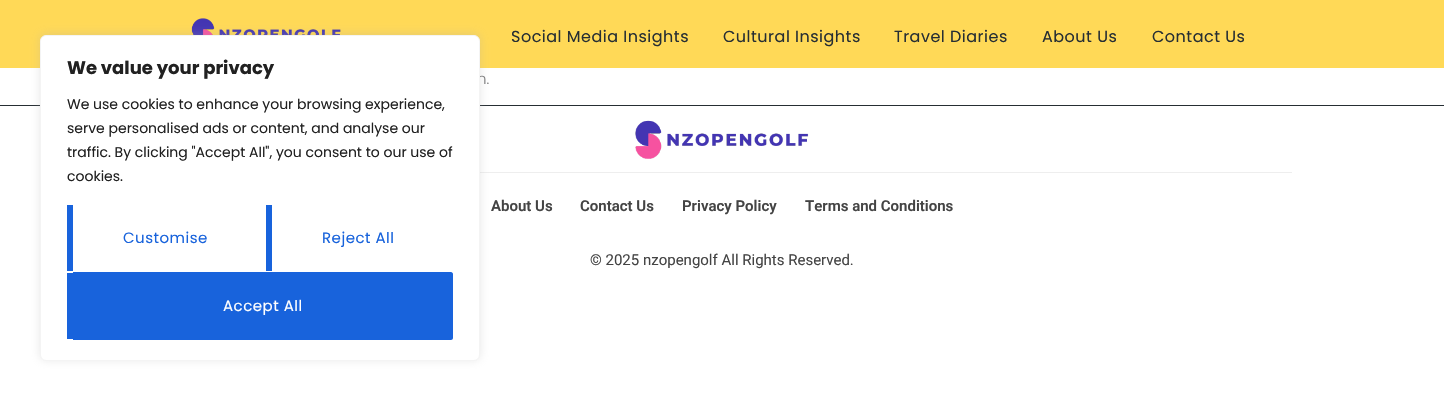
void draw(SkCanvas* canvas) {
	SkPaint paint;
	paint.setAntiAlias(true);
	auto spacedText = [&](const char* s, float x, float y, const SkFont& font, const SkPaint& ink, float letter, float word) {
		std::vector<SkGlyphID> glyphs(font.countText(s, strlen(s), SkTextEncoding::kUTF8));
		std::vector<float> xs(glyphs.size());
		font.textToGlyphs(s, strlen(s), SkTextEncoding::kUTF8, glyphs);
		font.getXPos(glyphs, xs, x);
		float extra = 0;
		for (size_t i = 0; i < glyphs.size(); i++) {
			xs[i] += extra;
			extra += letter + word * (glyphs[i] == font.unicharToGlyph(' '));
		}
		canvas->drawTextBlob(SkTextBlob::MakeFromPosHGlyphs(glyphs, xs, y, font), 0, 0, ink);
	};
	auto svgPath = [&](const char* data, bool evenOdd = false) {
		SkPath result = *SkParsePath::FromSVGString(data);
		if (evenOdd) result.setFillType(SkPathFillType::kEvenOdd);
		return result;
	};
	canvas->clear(0xffffffff);
	paint.setColor(0xffffd957);
	canvas->drawRect(SkRect::MakeXYWH(0, 0, 1444, 68), paint);
	canvas->drawImageRect(SkImages::DeferredFromEncodedData(SkData::MakeFromFileName("img1.png")), SkRect::MakeXYWH(191, 18, 150, 17), SkSamplingOptions());
	SkFont f1(fontMgr->matchFamilyStyle("Poppins", SkFontStyle::Normal()), 16);
	f1.setSubpixel(true);
	paint.setColor(0xff262e33);
	spacedText("Social Media Insights", 511, 42, f1, paint, 0.5, 0);
	spacedText("Cultural Insights", 723, 42, f1, paint, 0.5, 0);
	spacedText("Travel Diaries", 894, 42, f1, paint, 0.5, 0);
	spacedText("About Us", 1042, 42, f1, paint, 0.5, 0);
	spacedText("Contact Us", 1152, 42, f1, paint, 0.5, 0);
	canvas->drawRect(SkRect::MakeXYWH(0, 105, 1444, 1), paint);
	paint.setColor(0xffeeeeee);
	canvas->drawRect(SkRect::MakeXYWH(480, 172, 812, 1), paint);
	paint.setColor(0x4dacabab);
	paint.setMaskFilter(SkMaskFilter::MakeBlur(kNormal_SkBlurStyle, 5));
	canvas->drawRoundRect(SkRect::MakeXYWH(40, 34, 440, 326), 6, 6, paint);
	paint.setMaskFilter(nullptr);
	SkFont f2(fontMgr->matchFamilyStyle("Poppins", SkFontStyle(300, SkFontStyle::kNormal_Width, SkFontStyle::kUpright_Slant)), 15);
	f2.setSubpixel(true);
	paint.setColor(0xff7f7f80);
	canvas->drawString("n.", 477, 84, f2, paint);
	paint.setColor(0xffffffff);
	canvas->drawRoundRect(SkRect::MakeXYWH(40.5, 35.5, 439, 325), 5.5, 5.5, paint);
	paint.setStroke(true);
	paint.setStrokeWidth(1);
	paint.setColor(0xfff4f4f4);
	canvas->drawRoundRect(SkRect::MakeXYWH(40.5, 35.5, 439, 325), 5.5, 5.5, paint);
	SkFont f3(fontMgr->matchFamilyStyle("Poppins", SkFontStyle::Bold()), 18);
	f3.setSubpixel(true);
	paint.setStroke(false);
	paint.setColor(0xff212121);
	canvas->drawString("We value your privacy", 67, 74, f3, paint);
	SkFont f4(fontMgr->matchFamilyStyle("Poppins", SkFontStyle::Normal()), 14);
	f4.setSubpixel(true);
	canvas->drawString("We use cookies to enhance your browsing experience,", 67, 109, f4, paint);
	canvas->drawString("serve personalised ads or content, and analyse our", 67, 133, f4, paint);
	canvas->drawString("traffic. By clicking \"Accept All\", you consent to our use of", 67, 157, f4, paint);
	canvas->drawString("cookies.", 67, 181, f4, paint);
	paint.setColor(0xff1863dc);
	canvas->drawRect(SkRect::MakeXYWH(67, 205, 6, 66), paint);
	SkFont f5(fontMgr->matchFamilyStyle("Poppins", SkFontStyle::Normal()), 15);
	f5.setSubpixel(true);
	spacedText("Customise", 123, 243, f5, paint, 0.5, 0);
	canvas->drawRect(SkRect::MakeXYWH(266, 205, 6, 66), paint);
	spacedText("Reject All", 322, 243, f5, paint, 0.5, 0);
	canvas->drawPath(svgPath("M73 272H451C452 272 453 273 453 274V338C453 339 452 340 451 340H73Z"), paint);
	canvas->drawRect(SkRect::MakeXYWH(67, 273, 6, 66), paint);
	paint.setColor(0xffffffff);
	spacedText("Accept All", 223, 311, f5, paint, 0.5, 0);
	canvas->drawImageRect(SkImages::DeferredFromEncodedData(SkData::MakeFromFileName("img2.png")), SkRect::MakeXYWH(635, 120, 174, 39), SkSamplingOptions());
	SkFont f6(fontMgr->matchFamilyStyle("Roboto", SkFontStyle(600, SkFontStyle::kNormal_Width, SkFontStyle::kUpright_Slant)), 15);
	f6.setSubpixel(true);
	paint.setColor(0xff444444);
	canvas->drawString("About Us", 491, 211, f6, paint);
	canvas->drawString("Contact Us", 580, 211, f6, paint);
	canvas->drawString("Privacy Policy", 682, 211, f6, paint);
	canvas->drawString("Terms and Conditions", 805, 211, f6, paint);
	SkFont f7(fontMgr->matchFamilyStyle("Roboto", SkFontStyle::Normal()), 15);
	f7.setSubpixel(true);
	canvas->drawString("© 2025 nzopengolf All Rights Reserved.", 590, 265, f7, paint);
}
